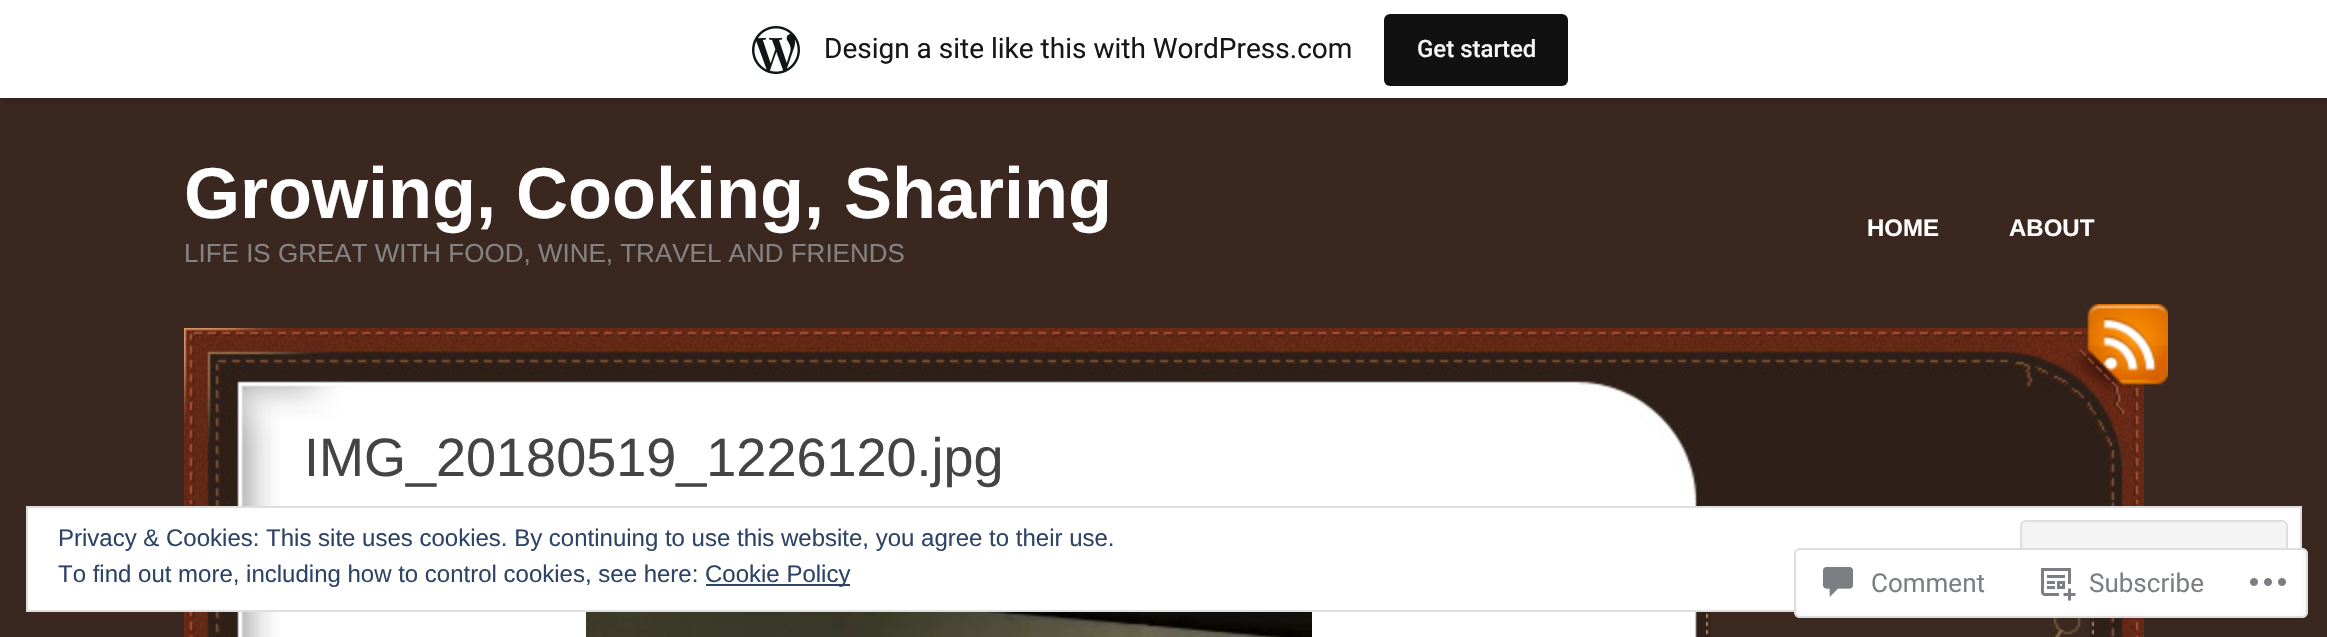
void draw(SkCanvas* canvas) {
	SkPaint paint;
	paint.setAntiAlias(true);
	auto svgPath = [&](const char* data, bool evenOdd = false) {
		SkPath result = *SkParsePath::FromSVGString(data);
		if (evenOdd) result.setFillType(SkPathFillType::kEvenOdd);
		return result;
	};
	canvas->clear(0xff3a2820);
	paint.setColor(0xff34241d);
	canvas->drawPath(svgPath("M2 98V104H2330V6H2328V98Z"), paint);
	paint.setColor(0xffffffff);
	canvas->drawRect(SkRect::MakeXYWH(0, 0, 2327, 98), paint);
	canvas->drawImageRect(SkImages::DeferredFromEncodedData(SkData::MakeFromFileName("img1.png")), SkRect::MakeXYWH(752, 26, 48, 48), SkSamplingOptions());
	SkFont f1(fontMgr->matchFamilyStyle("Roboto", SkFontStyle::Normal()), 28);
	f1.setSubpixel(true);
	paint.setColor(0xff171717);
	canvas->drawString("Design a site like this with WordPress.com", 824, 58, f1, paint);
	paint.setColor(0xff111111);
	canvas->drawRoundRect(SkRect::MakeXYWH(1384, 14, 184, 72), 6, 6, paint);
	SkFont f2(fontMgr->matchFamilyStyle("Roboto", SkFontStyle(500, SkFontStyle::kNormal_Width, SkFontStyle::kUpright_Slant)), 24);
	f2.setSubpixel(true);
	paint.setColor(0xfff6f7f7);
	canvas->drawString("Get started", 1417, 57, f2, paint);
	SkFont f3(fontMgr->matchFamilyStyle("Liberation Sans", SkFontStyle::Bold()), 72);
	f3.setSubpixel(true);
	paint.setColor(0xffffffff);
	canvas->drawString("Growing, Cooking, Sharing", 184, 218, f3, paint);
	SkFont f4(fontMgr->matchFamilyStyle("Liberation Sans", SkFontStyle::Normal()), 26);
	f4.setSubpixel(true);
	paint.setColor(0xff848282);
	canvas->drawString("LIFE IS GREAT WITH FOOD, WINE, TRAVEL AND FRIENDS", 184, 262, f4, paint);
	SkFont f5(fontMgr->matchFamilyStyle("Liberation Sans", SkFontStyle::Bold()), 24);
	f5.setSubpixel(true);
	paint.setColor(0xffffffff);
	canvas->drawString("HOME", 1867, 236, f5, paint);
	canvas->drawString("ABOUT", 2009, 236, f5, paint);
	canvas->drawImageRect(SkImages::DeferredFromEncodedData(SkData::MakeFromFileName("img2.png")), SkRect::MakeXYWH(184, 500, 1960, 137), SkSamplingOptions());
	canvas->drawImageRect(SkImages::DeferredFromEncodedData(SkData::MakeFromFileName("img4.png")), SkRect::MakeXYWH(184, 328, 1960, 172), SkSamplingOptions());
	canvas->drawImageRect(SkImages::DeferredFromEncodedData(SkData::MakeFromFileName("img3.png")), SkRect::MakeXYWH(2068, 304, 100, 110), SkSamplingOptions());
	SkFont f6(fontMgr->matchFamilyStyle("Liberation Sans", SkFontStyle::Normal()), 54);
	f6.setSubpixel(true);
	paint.setColor(0xff444444);
	canvas->drawString("IMG_20180519_1226120.jpg", 304, 476, f6, paint);
	canvas->drawImageRect(SkImages::DeferredFromEncodedData(SkData::MakeFromFileName("img5.png")), SkRect::MakeXYWH(586, 612, 726, 25), SkSamplingOptions());
	canvas->drawImageRect(SkImages::DeferredFromEncodedData(SkData::MakeFromFileName("img6.png")), SkRect::MakeXYWH(1706, 612, 388, 25), SkSamplingOptions());
	paint.setColor(0xffffffff);
	canvas->drawRect(SkRect::MakeXYWH(27, 507, 2274, 104), paint);
	paint.setStroke(true);
	paint.setStrokeWidth(2);
	paint.setColor(0xffdedede);
	canvas->drawRect(SkRect::MakeXYWH(27, 507, 2274, 104), paint);
	SkFont f7(fontMgr->matchFamilyStyle("Liberation Sans", SkFontStyle::Normal()), 24);
	f7.setSubpixel(true);
	paint.setStroke(false);
	paint.setColor(0xff2e4467);
	canvas->drawString("Privacy & Cookies: This site uses cookies. By continuing to use this website, you agree to their use.", 58, 546, f7, paint);
	paint.setColor(0xfff3f3f3);
	canvas->drawRoundRect(SkRect::MakeXYWH(2021, 521, 266, 76), 5, 5, paint);
	paint.setStroke(true);
	paint.setColor(0xffdedede);
	canvas->drawRoundRect(SkRect::MakeXYWH(2021, 521, 266, 76), 5, 5, paint);
	paint.setStroke(false);
	paint.setColor(0xff2e4467);
	canvas->drawString("To find out more, including how to control cookies, see here:", 58, 582, f7, paint);
	canvas->drawRect(SkRect::MakeXYWH(706, 584, 144, 2), paint);
	canvas->drawString("Cookie Policy", 705, 582, f7, paint);
	paint.setColor(0xfaffffff);
	canvas->drawRoundRect(SkRect::MakeXYWH(1794, 548, 514, 70), 6, 6, paint);
	paint.setStroke(true);
	paint.setColor(0xfadcdcde);
	canvas->drawRoundRect(SkRect::MakeXYWH(1795, 549, 512, 68), 5, 5, paint);
	canvas->drawImageRect(SkImages::DeferredFromEncodedData(SkData::MakeFromFileName("img7.png")), SkRect::MakeXYWH(1823, 567, 30, 30), SkSamplingOptions());
	SkFont f8(fontMgr->matchFamilyStyle("Roboto", SkFontStyle::Normal()), 26);
	f8.setSubpixel(true);
	paint.setStroke(false);
	paint.setColor(0xff7b7f85);
	canvas->drawString("Comment", 1871, 592, f8, paint);
	canvas->drawImageRect(SkImages::DeferredFromEncodedData(SkData::MakeFromFileName("img8.png")), SkRect::MakeXYWH(2041, 568, 35, 33), SkSamplingOptions());
	canvas->drawString("Subscribe", 2089, 592, f8, paint);
	canvas->drawImageRect(SkImages::DeferredFromEncodedData(SkData::MakeFromFileName("img9.png")), SkRect::MakeXYWH(2250, 578, 36, 8), SkSamplingOptions());
}
